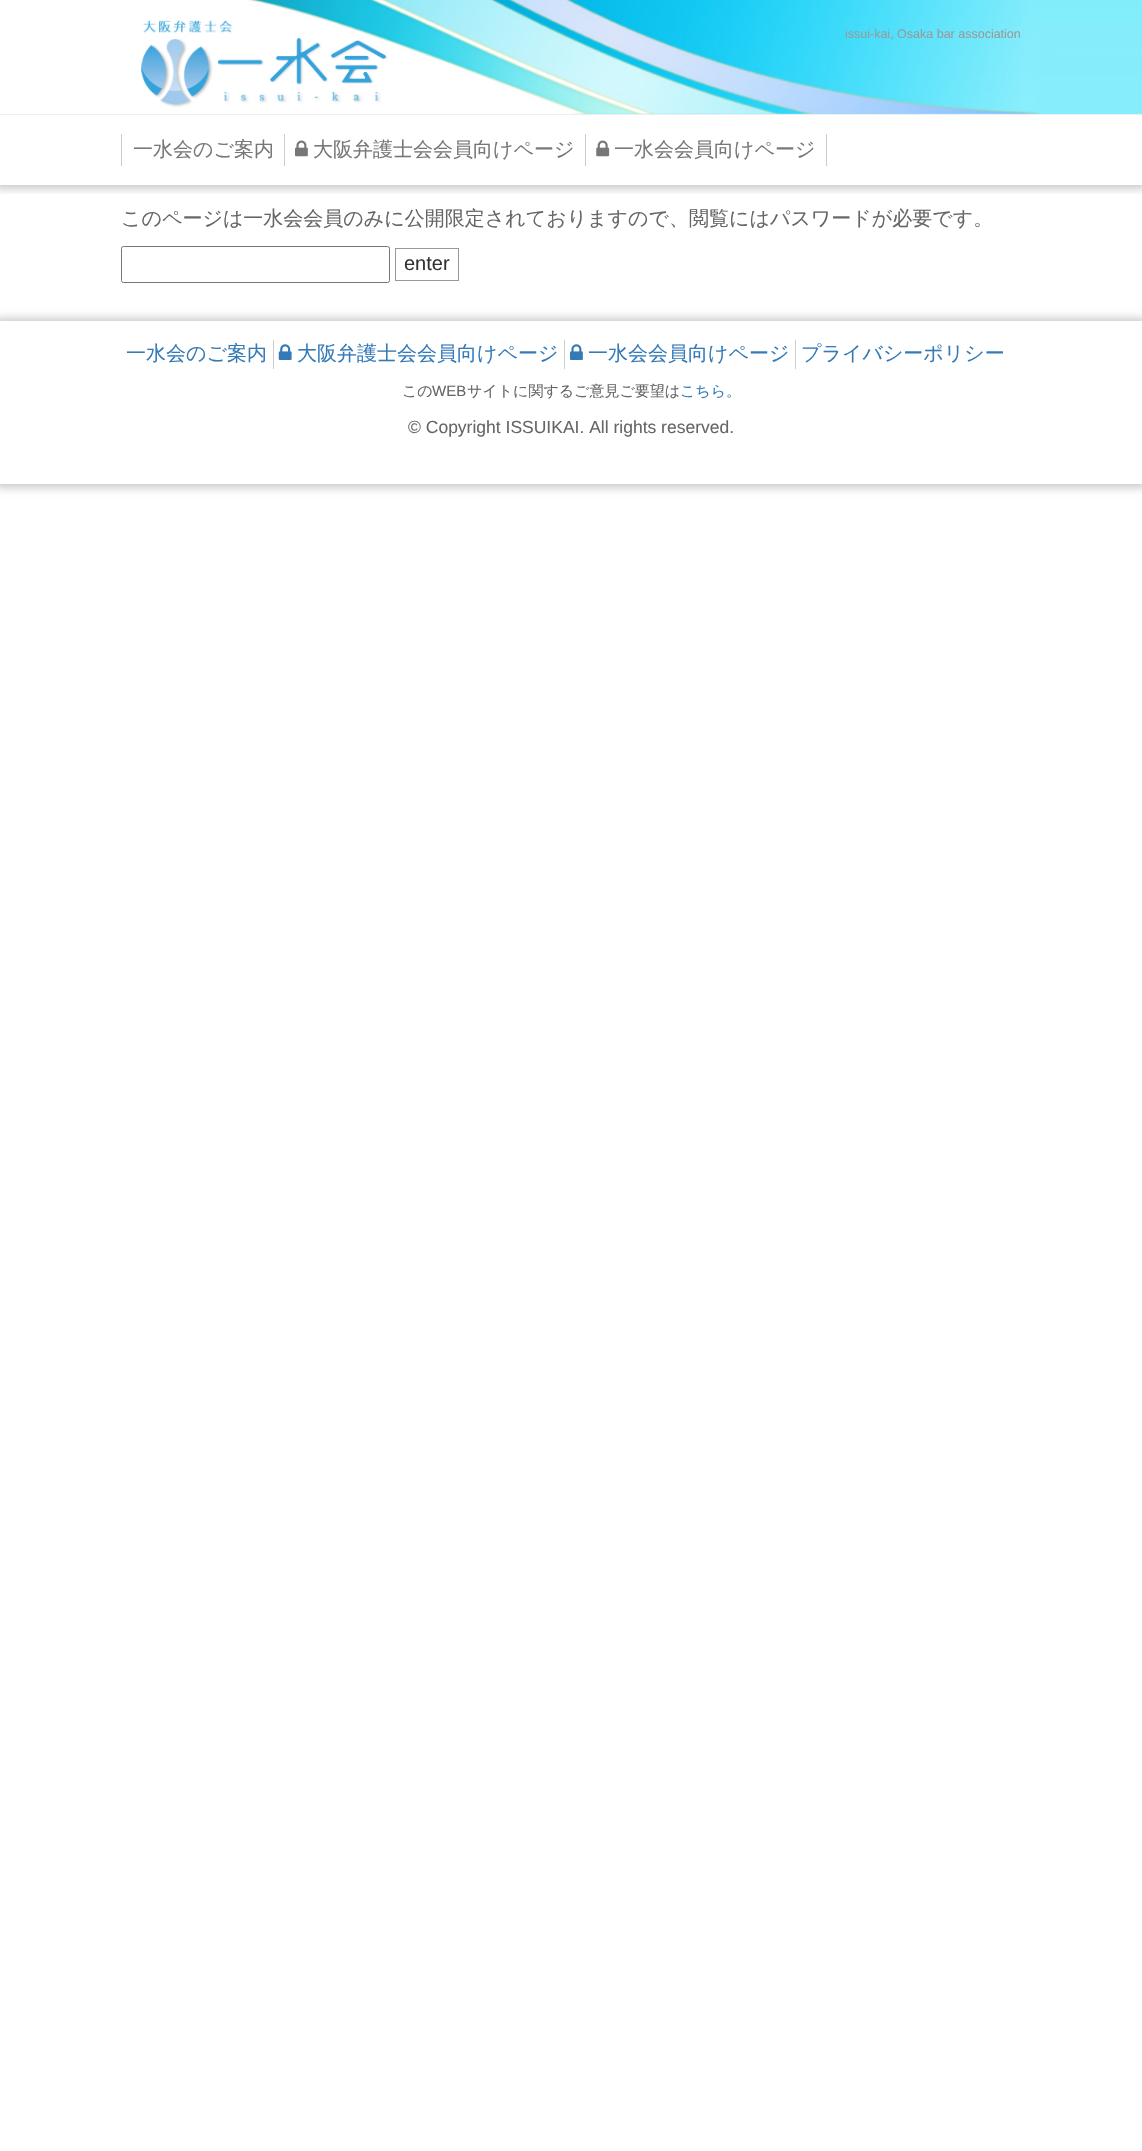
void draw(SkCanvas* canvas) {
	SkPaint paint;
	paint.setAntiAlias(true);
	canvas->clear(0xffffffff);
	canvas->save();
	canvas->clipRect(SkRect::MakeXYWH(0, 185, 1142, 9));
	paint.setColor(0x33000000);
	paint.setMaskFilter(SkMaskFilter::MakeBlur(kNormal_SkBlurStyle, 4));
	canvas->drawRect(SkRect::MakeXYWH(-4, -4, 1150, 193), paint);
	paint.setMaskFilter(nullptr);
	canvas->restore();
	canvas->drawImageRect(SkImages::DeferredFromEncodedData(SkData::MakeFromFileName("img1.png")), SkRect::MakeXYWH(572, 0, 570, 114), SkSamplingOptions());
	canvas->drawImageRect(SkImages::DeferredFromEncodedData(SkData::MakeFromFileName("img2.png")), SkRect::MakeXYWH(248, 0, 792, 114), SkSamplingOptions());
	canvas->drawImageRect(SkImages::DeferredFromEncodedData(SkData::MakeFromFileName("img3.png")), SkRect::MakeXYWH(141, 20, 247, 87), SkSamplingOptions());
	SkFont f1(fontMgr->matchFamilyStyle("Liberation Sans", SkFontStyle::Normal()), 12.5);
	f1.setSubpixel(true);
	paint.setColor(0xff999999);
	canvas->drawString("issui-kai, Osaka bar association", 845, 38, f1, paint);
	paint.setColor(0xffeeeeee);
	canvas->drawRect(SkRect::MakeXYWH(0, 114, 1142, 1), paint);
	paint.setColor(0xffcccccc);
	canvas->drawRect(SkRect::MakeXYWH(284, 134, 1, 32), paint);
	canvas->drawRect(SkRect::MakeXYWH(121, 134, 1, 32), paint);
	SkFont f2(fontMgr->matchFamilyStyle("WenQuanYi Zen Hei", SkFontStyle(500, SkFontStyle::kNormal_Width, SkFontStyle::kUpright_Slant)), 20);
	f2.setSubpixel(true);
	paint.setColor(0xff777777);
	canvas->drawString("一水会のご案内", 133, 156, f2, paint);
	paint.setColor(0xffcccccc);
	canvas->drawRect(SkRect::MakeXYWH(585, 134, 1, 32), paint);
	canvas->drawImageRect(SkImages::DeferredFromEncodedData(SkData::MakeFromFileName("img4.png")), SkRect::MakeXYWH(295, 140, 13, 17), SkSamplingOptions());
	paint.setColor(0xff777777);
	canvas->drawString("大阪弁護士会会員向けページ", 313, 156, f2, paint);
	paint.setColor(0xffcccccc);
	canvas->drawRect(SkRect::MakeXYWH(826, 134, 1, 32), paint);
	canvas->drawImageRect(SkImages::DeferredFromEncodedData(SkData::MakeFromFileName("img5.png")), SkRect::MakeXYWH(596, 140, 14, 17), SkSamplingOptions());
	paint.setColor(0xff777777);
	canvas->drawString("一水会会員向けページ", 614, 156, f2, paint);
	paint.setColor(0xff666666);
	canvas->drawString("このページは一水会会員のみに公開限定されておりますので、閲覧にはパスワードが必要です。", 121, 225, f2, paint);
	paint.setStroke(true);
	paint.setStrokeWidth(1);
	paint.setColor(0xff767676);
	canvas->drawRoundRect(SkRect::MakeXYWH(121.5, 246.5, 268, 36), 2, 2, paint);
	paint.setColor(0xff999999);
	canvas->drawRect(SkRect::MakeXYWH(395.5, 248.5, 63, 32), paint);
	SkFont f3(fontMgr->matchFamilyStyle("Liberation Sans", SkFontStyle::Normal()), 20);
	f3.setSubpixel(true);
	paint.setStroke(false);
	paint.setColor(0xff333333);
	canvas->drawString("enter", 404, 270, f3, paint);
	paint.setColor(0x33000000);
	paint.setMaskFilter(SkMaskFilter::MakeBlur(kNormal_SkBlurStyle, 4));
	canvas->drawRect(SkRect::MakeXYWH(-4, 318, 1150, 170), paint);
	paint.setMaskFilter(nullptr);
	paint.setColor(0xffffffff);
	canvas->drawRect(SkRect::MakeXYWH(0, 321, 1142, 163), paint);
	paint.setColor(0xff337ab7);
	canvas->drawString("一水会のご案内", 126, 360, f2, paint);
	paint.setColor(0xffcccccc);
	canvas->drawRect(SkRect::MakeXYWH(273, 340, 1, 29), paint);
	canvas->drawImageRect(SkImages::DeferredFromEncodedData(SkData::MakeFromFileName("img6.png")), SkRect::MakeXYWH(278, 344, 14, 16), SkSamplingOptions());
	paint.setColor(0xff337ab7);
	canvas->drawString("大阪弁護士会会員向けページ", 297, 360, f2, paint);
	paint.setColor(0xffcccccc);
	canvas->drawRect(SkRect::MakeXYWH(564, 340, 1, 29), paint);
	canvas->drawImageRect(SkImages::DeferredFromEncodedData(SkData::MakeFromFileName("img7.png")), SkRect::MakeXYWH(570, 344, 13, 16), SkSamplingOptions());
	paint.setColor(0xff337ab7);
	canvas->drawString("一水会会員向けページ", 588, 360, f2, paint);
	paint.setColor(0xffcccccc);
	canvas->drawRect(SkRect::MakeXYWH(795, 340, 1, 29), paint);
	paint.setColor(0xff337ab7);
	canvas->drawString("プライバシーポリシー", 801, 360, f2, paint);
	SkFont f4(fontMgr->matchFamilyStyle("WenQuanYi Zen Hei", SkFontStyle(500, SkFontStyle::kNormal_Width, SkFontStyle::kUpright_Slant)), 15);
	f4.setSubpixel(true);
	paint.setColor(0xff666666);
	canvas->drawString("この", 402, 396, f4, paint);
	SkFont f5(fontMgr->matchFamilyStyle("Liberation Sans", SkFontStyle::Normal()), 15);
	f5.setSubpixel(true);
	canvas->drawString("WEB", 432, 396, f5, paint);
	canvas->drawString("サイトに関するご意見ご要望は", 467, 396, f4, paint);
	paint.setColor(0xff337ab7);
	canvas->drawString("こちら。", 680, 396, f4, paint);
	SkFont f6(fontMgr->matchFamilyStyle("Liberation Sans", SkFontStyle::Normal()), 17.5);
	f6.setSubpixel(true);
	paint.setColor(0xff666666);
	canvas->drawString("© Copyright ISSUIKAI. All rights reserved.", 408, 433, f6, paint);
}
